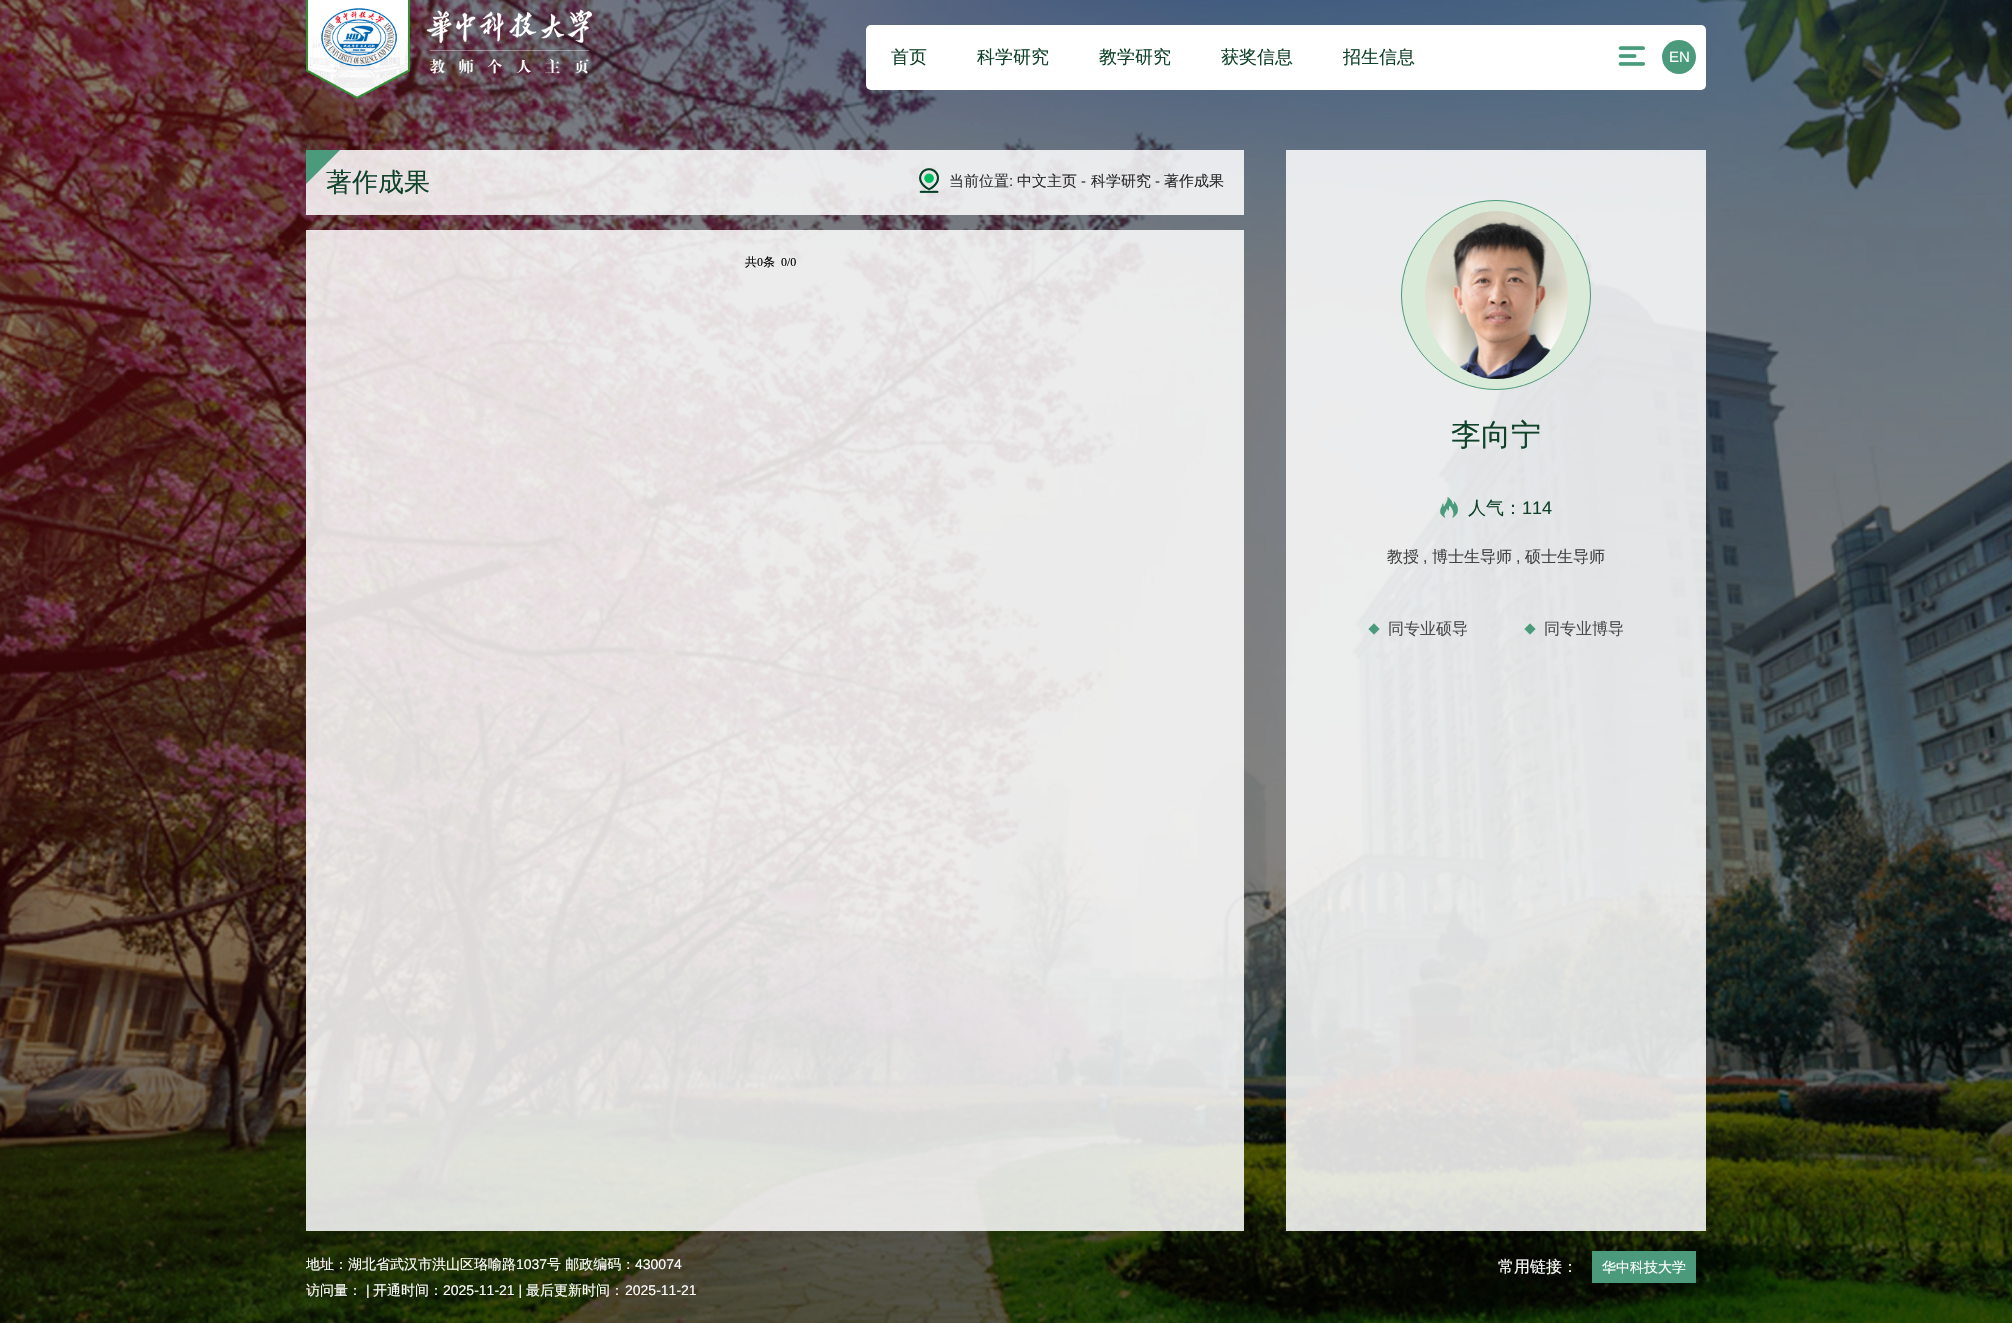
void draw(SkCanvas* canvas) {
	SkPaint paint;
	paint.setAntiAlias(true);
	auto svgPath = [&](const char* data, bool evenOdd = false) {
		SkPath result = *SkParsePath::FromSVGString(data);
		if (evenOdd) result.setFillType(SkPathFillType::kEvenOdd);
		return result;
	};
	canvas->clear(0xffffffff);
	canvas->drawImageRect(SkImages::DeferredFromEncodedData(SkData::MakeFromFileName("img1.png")), SkRect::MakeXYWH(0, 0, 2012, 1323), SkSamplingOptions());
	canvas->drawImageRect(SkImages::DeferredFromEncodedData(SkData::MakeFromFileName("img2.png")), SkRect::MakeXYWH(306, 0, 286, 99), SkSamplingOptions());
	paint.setColor(0xffffffff);
	canvas->drawRoundRect(SkRect::MakeXYWH(866, 25, 840, 65), 5, 5, paint);
	SkFont f1(fontMgr->matchFamilyStyle("WenQuanYi Zen Hei", SkFontStyle(500, SkFontStyle::kNormal_Width, SkFontStyle::kUpright_Slant)), 18);
	f1.setSubpixel(true);
	paint.setColor(0xff0f4229);
	canvas->drawString("首页", 891, 63, f1, paint);
	canvas->drawString("科学研究", 977, 63, f1, paint);
	canvas->drawString("教学研究", 1099, 63, f1, paint);
	canvas->drawString("获奖信息", 1221, 63, f1, paint);
	canvas->drawString("招生信息", 1343, 63, f1, paint);
	canvas->drawImageRect(SkImages::DeferredFromEncodedData(SkData::MakeFromFileName("img3.png")), SkRect::MakeXYWH(1618, 46, 27, 20), SkSamplingOptions());
	paint.setColor(0xff4b9a7b);
	canvas->drawCircle(1679, 57, 17, paint);
	SkFont f2(fontMgr->matchFamilyStyle("Liberation Sans", SkFontStyle::Normal()), 15);
	f2.setSubpixel(true);
	paint.setColor(0xffffffff);
	canvas->drawString("EN", 1669, 62, f2, paint);
	paint.setColor(0xd9ffffff);
	canvas->drawRect(SkRect::MakeXYWH(306, 150, 938, 65), paint);
	SkFont f3(fontMgr->matchFamilyStyle("WenQuanYi Zen Hei", SkFontStyle(500, SkFontStyle::kNormal_Width, SkFontStyle::kUpright_Slant)), 26);
	f3.setSubpixel(true);
	paint.setColor(0xff0f4229);
	canvas->drawString("著作成果", 326, 191, f3, paint);
	paint.setColor(0xff4b9a7b);
	canvas->drawPath(svgPath("M306 184V150H340Z"), paint);
	canvas->drawImageRect(SkImages::DeferredFromEncodedData(SkData::MakeFromFileName("img4.png")), SkRect::MakeXYWH(919, 168, 20, 25), SkSamplingOptions());
	SkFont f4(fontMgr->matchFamilyStyle("WenQuanYi Zen Hei", SkFontStyle(500, SkFontStyle::kNormal_Width, SkFontStyle::kUpright_Slant)), 15);
	f4.setSubpixel(true);
	paint.setColor(0xff353535);
	canvas->drawString("当前位置", 949, 186, f4, paint);
	canvas->drawString(":", 1009, 186, f2, paint);
	paint.setColor(0xff2b2b2b);
	canvas->drawString("中文主页", 1017, 186, f4, paint);
	paint.setColor(0xff353535);
	canvas->drawString("-", 1081, 186, f2, paint);
	paint.setColor(0xff2b2b2b);
	canvas->drawString("科学研究", 1091, 186, f4, paint);
	paint.setColor(0xff353535);
	canvas->drawString("-", 1155, 186, f2, paint);
	paint.setColor(0xff2b2b2b);
	canvas->drawString("著作成果", 1164, 186, f4, paint);
	paint.setColor(0xd9ffffff);
	canvas->drawRect(SkRect::MakeXYWH(306, 230, 938, 1001), paint);
	SkFont f5(fontMgr->matchFamilyStyle("WenQuanYi Zen Hei", SkFontStyle(500, SkFontStyle::kNormal_Width, SkFontStyle::kUpright_Slant)), 12);
	f5.setSubpixel(true);
	paint.setColor(0xff000000);
	canvas->drawString("共", 745, 266, f5, paint);
	SkFont f6(fontMgr->matchFamilyStyle("Liberation Serif", SkFontStyle::Normal()), 12);
	f6.setSubpixel(true);
	canvas->drawString("0", 757, 266, f6, paint);
	canvas->drawString("条", 763, 266, f5, paint);
	canvas->drawString("0/0", 781, 266, f6, paint);
	paint.setColor(0xd9ffffff);
	canvas->drawRect(SkRect::MakeXYWH(1286, 150, 420, 1081), paint);
	paint.setColor(0xffd9ead9);
	canvas->drawCircle(1496, 295, 94.5, paint);
	paint.setStroke(true);
	paint.setStrokeWidth(1);
	paint.setColor(0xff4b9a7b);
	canvas->drawCircle(1496, 295, 94.5, paint);
	canvas->drawImageRect(SkImages::DeferredFromEncodedData(SkData::MakeFromFileName("img5.png")), SkRect::MakeXYWH(1425, 211, 143, 168), SkSamplingOptions());
	SkFont f7(fontMgr->matchFamilyStyle("WenQuanYi Zen Hei", SkFontStyle(500, SkFontStyle::kNormal_Width, SkFontStyle::kUpright_Slant)), 30);
	f7.setSubpixel(true);
	paint.setStroke(false);
	paint.setColor(0xff0f4229);
	canvas->drawString("李向宁", 1451, 445, f7, paint);
	canvas->drawImageRect(SkImages::DeferredFromEncodedData(SkData::MakeFromFileName("img6.png")), SkRect::MakeXYWH(1440, 497, 18, 21), SkSamplingOptions());
	canvas->drawString("人气：", 1468, 514, f1, paint);
	SkFont f8(fontMgr->matchFamilyStyle("Liberation Sans", SkFontStyle::Normal()), 18);
	f8.setSubpixel(true);
	canvas->drawString("114", 1522, 514, f8, paint);
	SkFont f9(fontMgr->matchFamilyStyle("WenQuanYi Zen Hei", SkFontStyle(500, SkFontStyle::kNormal_Width, SkFontStyle::kUpright_Slant)), 16);
	f9.setSubpixel(true);
	paint.setColor(0xff434343);
	canvas->drawString("教授", 1387, 562, f9, paint);
	SkFont f10(fontMgr->matchFamilyStyle("Liberation Sans", SkFontStyle::Normal()), 16);
	f10.setSubpixel(true);
	canvas->drawString(",", 1423, 562, f10, paint);
	canvas->drawString("博士生导师", 1432, 562, f9, paint);
	canvas->drawString(",", 1516, 562, f10, paint);
	canvas->drawString("硕士生导师", 1525, 562, f9, paint);
	canvas->drawImageRect(SkImages::DeferredFromEncodedData(SkData::MakeFromFileName("img7.png")), SkRect::MakeXYWH(1368, 623, 12, 12), SkSamplingOptions());
	paint.setColor(0xff4c4c4c);
	canvas->drawString("同专业硕导", 1388, 634, f9, paint);
	canvas->drawImageRect(SkImages::DeferredFromEncodedData(SkData::MakeFromFileName("img8.png")), SkRect::MakeXYWH(1524, 623, 12, 12), SkSamplingOptions());
	canvas->drawString("同专业博导", 1544, 634, f9, paint);
	SkFont f11(fontMgr->matchFamilyStyle("WenQuanYi Zen Hei", SkFontStyle(500, SkFontStyle::kNormal_Width, SkFontStyle::kUpright_Slant)), 14);
	f11.setSubpixel(true);
	paint.setColor(0xffffffff);
	canvas->drawString("地址：湖北省武汉市洪山区珞喻路", 306, 1269, f11, paint);
	SkFont f12(fontMgr->matchFamilyStyle("Liberation Sans", SkFontStyle::Normal()), 14);
	f12.setSubpixel(true);
	canvas->drawString("1037", 516, 1269, f12, paint);
	canvas->drawString("号 邮政编码：", 547, 1269, f11, paint);
	canvas->drawString("430074", 635, 1269, f12, paint);
	canvas->drawString("访问量：", 306, 1295, f11, paint);
	canvas->drawString("|", 366, 1295, f12, paint);
	canvas->drawString("开通时间：", 373, 1295, f11, paint);
	canvas->drawString("2025-11-21 |", 443, 1295, f12, paint);
	canvas->drawString("最后更新时间：", 526, 1295, f11, paint);
	canvas->drawString("2025-11-21", 625, 1295, f12, paint);
	canvas->drawString("常用链接：", 1498, 1272, f9, paint);
	paint.setColor(0xff4b9a7b);
	canvas->drawRect(SkRect::MakeXYWH(1592, 1251, 104, 32), paint);
	paint.setColor(0xffffffff);
	canvas->drawString("华中科技大学", 1602, 1272, f11, paint);
}
